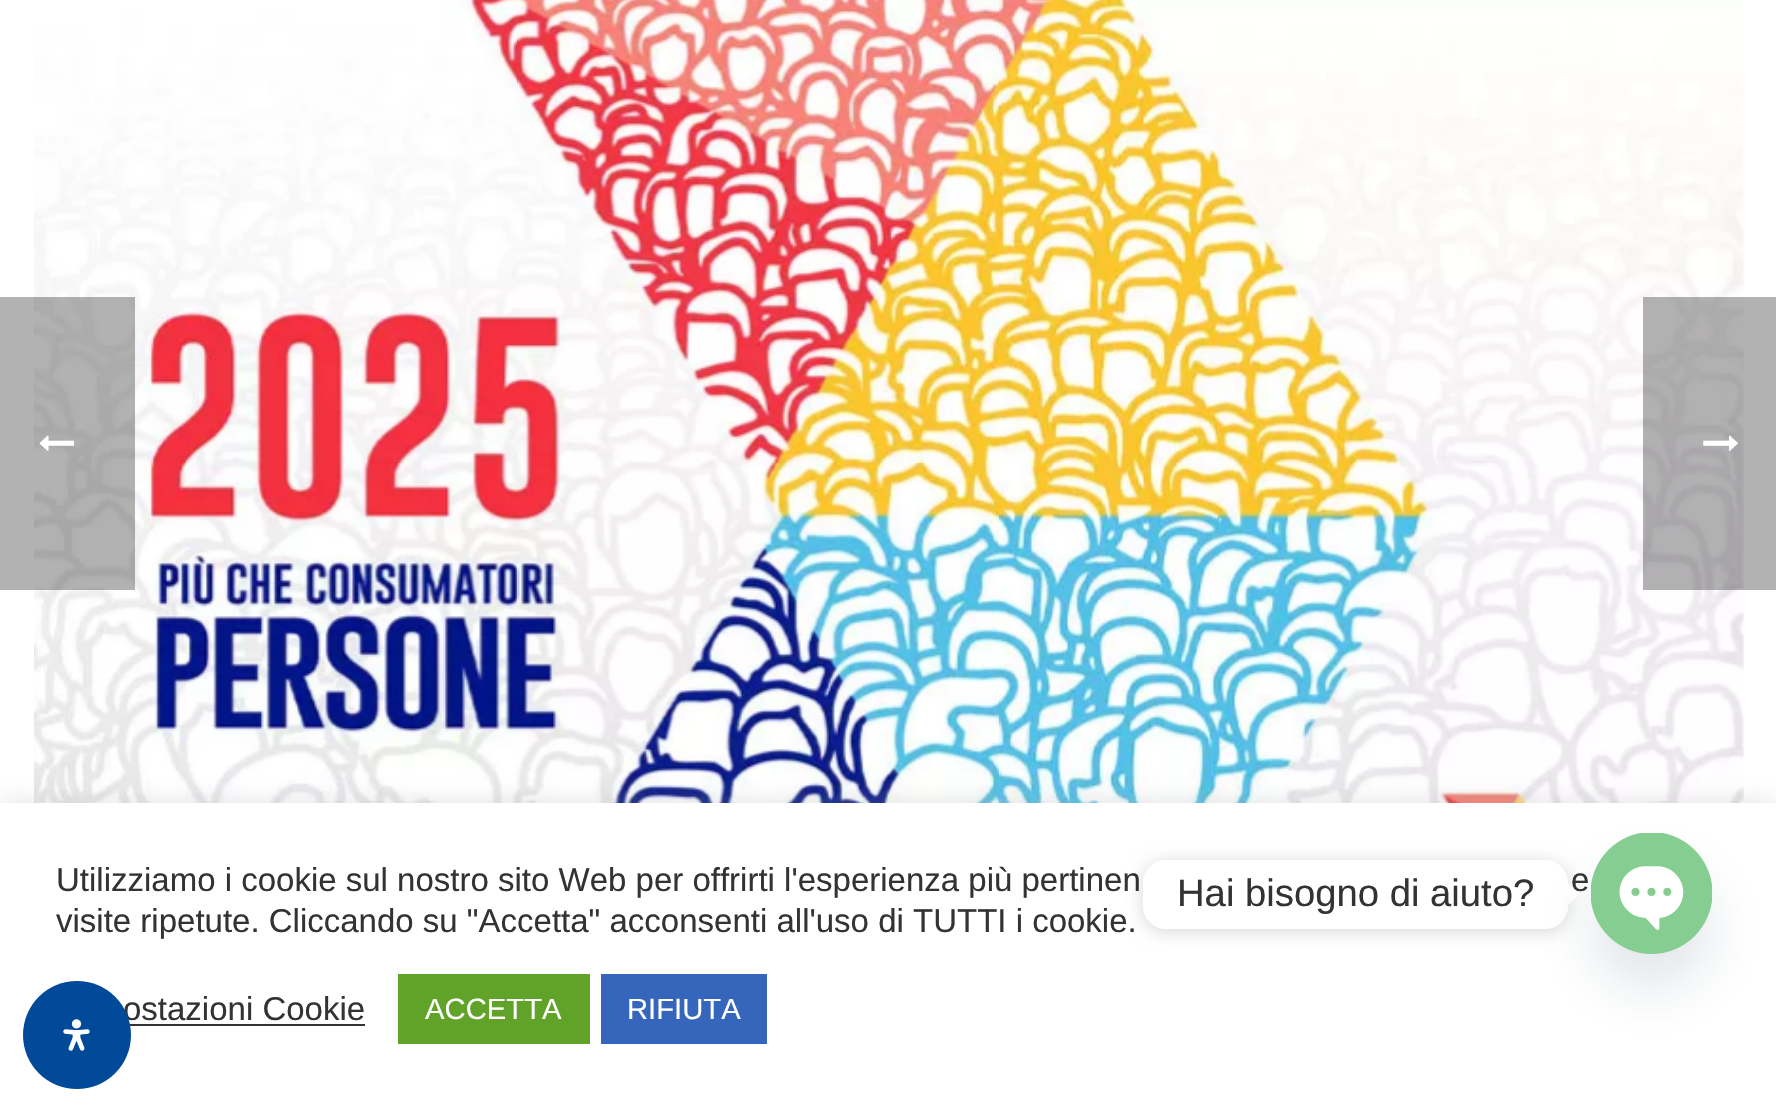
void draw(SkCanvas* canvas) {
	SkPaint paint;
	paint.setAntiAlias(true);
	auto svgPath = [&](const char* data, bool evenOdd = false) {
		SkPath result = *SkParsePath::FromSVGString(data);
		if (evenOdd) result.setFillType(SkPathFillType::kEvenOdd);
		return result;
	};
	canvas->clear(0xffffffff);
	canvas->drawImageRect(SkImages::DeferredFromEncodedData(SkData::MakeFromFileName("img1.png")), SkRect::MakeXYWH(34, 0, 1710, 803), SkSamplingOptions());
	paint.setColor(0x4d000000);
	canvas->drawRect(SkRect::MakeXYWH(0, 297, 135, 293), paint);
	canvas->drawImageRect(SkImages::DeferredFromEncodedData(SkData::MakeFromFileName("img2.png")), SkRect::MakeXYWH(39, 435, 35, 16), SkSamplingOptions());
	canvas->drawRect(SkRect::MakeXYWH(1643, 297, 133, 293), paint);
	canvas->drawImageRect(SkImages::DeferredFromEncodedData(SkData::MakeFromFileName("img3.png")), SkRect::MakeXYWH(1703, 435, 35, 16), SkSamplingOptions());
	paint.setColor(0x4dacabab);
	paint.setMaskFilter(SkMaskFilter::MakeBlur(kNormal_SkBlurStyle, 11));
	canvas->drawRect(SkRect::MakeXYWH(0, 801, 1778, 308), paint);
	paint.setMaskFilter(nullptr);
	paint.setColor(0xffffffff);
	canvas->drawRect(SkRect::MakeXYWH(0, 803, 1776, 308), paint);
	SkFont f1(fontMgr->matchFamilyStyle("Liberation Sans", SkFontStyle::Normal()), 33);
	f1.setSubpixel(true);
	paint.setColor(0xff333333);
	canvas->drawString("Utilizziamo i cookie sul nostro sito Web per offrirti l'esperienza più pertinen", 56, 891, f1, paint);
	canvas->drawString("e", 1571, 891, f1, paint);
	canvas->drawString("visite ripetute. Cliccando su \"Accetta\" acconsenti all'uso di TUTTI i cookie.", 56, 932, f1, paint);
	canvas->drawString("ostazioni Cookie", 123, 1020, f1, paint);
	canvas->drawRect(SkRect::MakeXYWH(129, 1024, 236, 2), paint);
	paint.setColor(0xff61a229);
	canvas->drawRect(SkRect::MakeXYWH(398, 974, 192, 70), paint);
	SkFont f2(fontMgr->matchFamilyStyle("Liberation Sans", SkFontStyle::Normal()), 29.25);
	f2.setSubpixel(true);
	paint.setColor(0xffffffff);
	canvas->drawString("ACCETTA", 425, 1019, f2, paint);
	paint.setColor(0xff3566bb);
	canvas->drawRect(SkRect::MakeXYWH(601, 974, 166, 70), paint);
	paint.setColor(0xffffffff);
	canvas->drawString("RIFIUTA", 627, 1019, f2, paint);
	canvas->save();
	canvas->clipPath(svgPath("M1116 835H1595V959H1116ZM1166 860H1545C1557.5 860 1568 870.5 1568 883V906C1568 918.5 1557.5 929 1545 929H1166C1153.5 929 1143 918.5 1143 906V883C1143 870.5 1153.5 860 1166 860Z", true), true);
	paint.setColor(0x26000000);
	paint.setMaskFilter(SkMaskFilter::MakeBlur(kNormal_SkBlurStyle, 8.5));
	canvas->drawRoundRect(SkRect::MakeXYWH(1143, 862, 425, 70), 23, 23, paint);
	paint.setMaskFilter(nullptr);
	canvas->restore();
	paint.setColor(0xffffffff);
	canvas->drawRoundRect(SkRect::MakeXYWH(1143, 860, 425, 69), 23, 23, paint);
	SkFont f3(fontMgr->matchFamilyStyle("Liberation Sans", SkFontStyle::Normal()), 38.25);
	f3.setSubpixel(true);
	paint.setColor(0xff333333);
	canvas->drawString("Hai bisogno di aiuto?", 1177, 906, f3, paint);
	paint.setColor(0xffffffff);
	canvas->drawPath(svgPath("M1568 905.5V883L1579.5 894.5Z"), paint);
	paint.setColor(0x2949687e);
	paint.setMaskFilter(SkMaskFilter::MakeBlur(kNormal_SkBlurStyle, 27));
	canvas->drawRoundRect(SkRect::MakeXYWH(1591, 869, 121, 121), 60.5, 60.5, paint);
	paint.setMaskFilter(nullptr);
	canvas->drawImageRect(SkImages::DeferredFromEncodedData(SkData::MakeFromFileName("img4.png")), SkRect::MakeXYWH(1591, 833, 121, 121), SkSamplingOptions());
	paint.setColor(0xff004a99);
	canvas->drawCircle(77, 1035, 54, paint);
	canvas->drawImageRect(SkImages::DeferredFromEncodedData(SkData::MakeFromFileName("img5.png")), SkRect::MakeXYWH(63, 1019, 27, 32), SkSamplingOptions());
}
